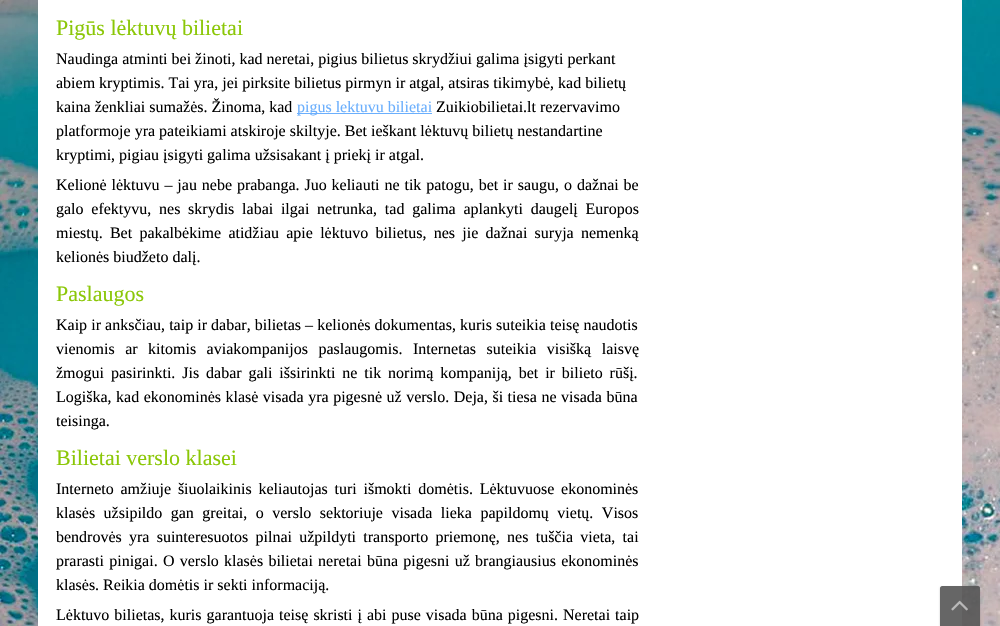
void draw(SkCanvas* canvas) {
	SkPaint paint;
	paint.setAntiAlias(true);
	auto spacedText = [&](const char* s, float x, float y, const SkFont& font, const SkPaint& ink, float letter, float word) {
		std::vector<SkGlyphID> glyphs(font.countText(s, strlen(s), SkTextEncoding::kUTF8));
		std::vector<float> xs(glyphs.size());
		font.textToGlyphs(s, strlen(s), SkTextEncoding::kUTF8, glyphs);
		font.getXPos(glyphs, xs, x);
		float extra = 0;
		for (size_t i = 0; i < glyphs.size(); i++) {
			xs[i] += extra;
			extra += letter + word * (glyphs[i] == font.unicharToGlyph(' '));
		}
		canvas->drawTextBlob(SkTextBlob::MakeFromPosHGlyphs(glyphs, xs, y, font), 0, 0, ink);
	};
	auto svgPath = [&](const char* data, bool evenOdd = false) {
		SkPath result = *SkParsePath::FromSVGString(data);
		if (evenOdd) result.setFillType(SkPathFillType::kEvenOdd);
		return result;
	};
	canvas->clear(0xffffffff);
	canvas->drawImageRect(SkImages::DeferredFromEncodedData(SkData::MakeFromFileName("img1.png")), SkRect::MakeXYWH(0, 0, 1000, 626), SkSamplingOptions());
	paint.setColor(0xffffffff);
	canvas->drawRect(SkRect::MakeXYWH(38, 0, 924, 626), paint);
	SkFont f1(fontMgr->matchFamilyStyle("Liberation Serif", SkFontStyle::Normal()), 22);
	f1.setSubpixel(true);
	paint.setColor(0xff8bc707);
	canvas->drawString("Pigūs lėktuvų bilietai", 56, 35, f1, paint);
	SkFont f2(fontMgr->matchFamilyStyle("Liberation Serif", SkFontStyle::Normal()), 16);
	f2.setSubpixel(true);
	paint.setColor(0xff000000);
	canvas->drawString("Naudinga atminti bei žinoti, kad neretai, pigius bilietus skrydžiui galima įsigyti perkant", 56, 64, f2, paint);
	canvas->drawString("abiem kryptimis. Tai yra, jei pirksite bilietus pirmyn ir atgal, atsiras tikimybė, kad bilietų", 56, 88, f2, paint);
	canvas->drawString("kaina ženkliai sumažės. Žinoma, kad", 56, 112, f2, paint);
	paint.setColor(0xff6baffd);
	canvas->drawRect(SkRect::MakeXYWH(297, 113, 135, 1), paint);
	canvas->drawString("pigus lektuvu bilietai", 297, 112, f2, paint);
	paint.setColor(0xff000000);
	canvas->drawString("Zuikiobilietai.lt rezervavimo", 436, 112, f2, paint);
	canvas->drawString("platformoje yra pateikiami atskiroje skiltyje. Bet ieškant lėktuvų bilietų nestandartine", 56, 136, f2, paint);
	canvas->drawString("kryptimi, pigiau įsigyti galima užsisakant į priekį ir atgal.", 56, 160, f2, paint);
	spacedText("Kelionė lėktuvu – jau nebe prabanga. Juo keliauti ne tik patogu, bet ir saugu, o dažnai be", 56, 190, f2, paint, 0, 0.9);
	spacedText("galo efektyvu, nes skrydis labai ilgai netrunka, tad galima aplankyti daugelį Europos", 56, 214, f2, paint, 0, 3.75);
	spacedText("miestų. Bet pakalbėkime atidžiau apie lėktuvo bilietus, nes jie dažnai suryja nemenką", 56, 238, f2, paint, 0, 3.25);
	canvas->drawString("kelionės biudžeto dalį.", 56, 262, f2, paint);
	paint.setColor(0xff8bc707);
	canvas->drawString("Paslaugos", 56, 301, f1, paint);
	paint.setColor(0xff000000);
	spacedText("Kaip ir anksčiau, taip ir dabar, bilietas – kelionės dokumentas, kuris suteikia teisę naudotis", 56, 330, f2, paint, 0, 0.1);
	spacedText("vienomis ar kitomis aviakompanijos paslaugomis. Internetas suteikia visišką laisvę", 56, 354, f2, paint, 0, 6.5);
	spacedText("žmogui pasirinkti. Jis dabar gali išsirinkti ne tik norimą kompaniją, bet ir bilieto rūšį.", 56, 378, f2, paint, 0, 2.9);
	spacedText("Logiška, kad ekonominės klasė visada yra pigesnė už verslo. Deja, ši tiesa ne visada būna", 56, 402, f2, paint, 0, 0.5);
	canvas->drawString("teisinga.", 56, 426, f2, paint);
	paint.setColor(0xff8bc707);
	canvas->drawString("Bilietai verslo klasei", 56, 465, f1, paint);
	paint.setColor(0xff000000);
	spacedText("Interneto amžiuje šiuolaikinis keliautojas turi išmokti domėtis. Lėktuvuose ekonominės", 56, 494, f2, paint, 0, 2.75);
	spacedText("klasės užsipildo gan greitai, o verslo sektoriuje visada lieka papildomų vietų. Visos", 56, 518, f2, paint, 0, 4.5);
	spacedText("bendrovės yra suinteresuotos pilnai užpildyti transporto priemonę, nes tuščia vieta, tai", 56, 542, f2, paint, 0, 3.25);
	spacedText("prarasti pinigai. O verslo klasės bilietai neretai būna pigesni už brangiausius ekonominės", 56, 566, f2, paint, 0, 1.25);
	canvas->drawString("klasės. Reikia domėtis ir sekti informaciją.", 56, 590, f2, paint);
	spacedText("Lėktuvo bilietas, kuris garantuoja teisę skristi į abi puse visada būna pigesni. Neretai taip", 56, 620, f2, paint, 0, 1);
	canvas->save();
	canvas->clipPath(svgPath("M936 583H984V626H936ZM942 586H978C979 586 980 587 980 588V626H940V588C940 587 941 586 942 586Z", true), true);
	paint.setColor(0x3b000000);
	paint.setMaskFilter(SkMaskFilter::MakeBlur(kNormal_SkBlurStyle, 1));
	canvas->drawRoundRect(SkRect::MakeXYWH(940, 587, 40, 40), 2, 2, paint);
	paint.setMaskFilter(nullptr);
	canvas->restore();
	paint.setColor(0xe6555555);
	canvas->drawPath(svgPath("M942 586H978C979 586 980 587 980 588V626H940V588C940 587 941 586 942 586Z"), paint);
	canvas->drawImageRect(SkImages::DeferredFromEncodedData(SkData::MakeFromFileName("img2.png")), SkRect::MakeXYWH(951, 600, 17, 11), SkSamplingOptions());
}
